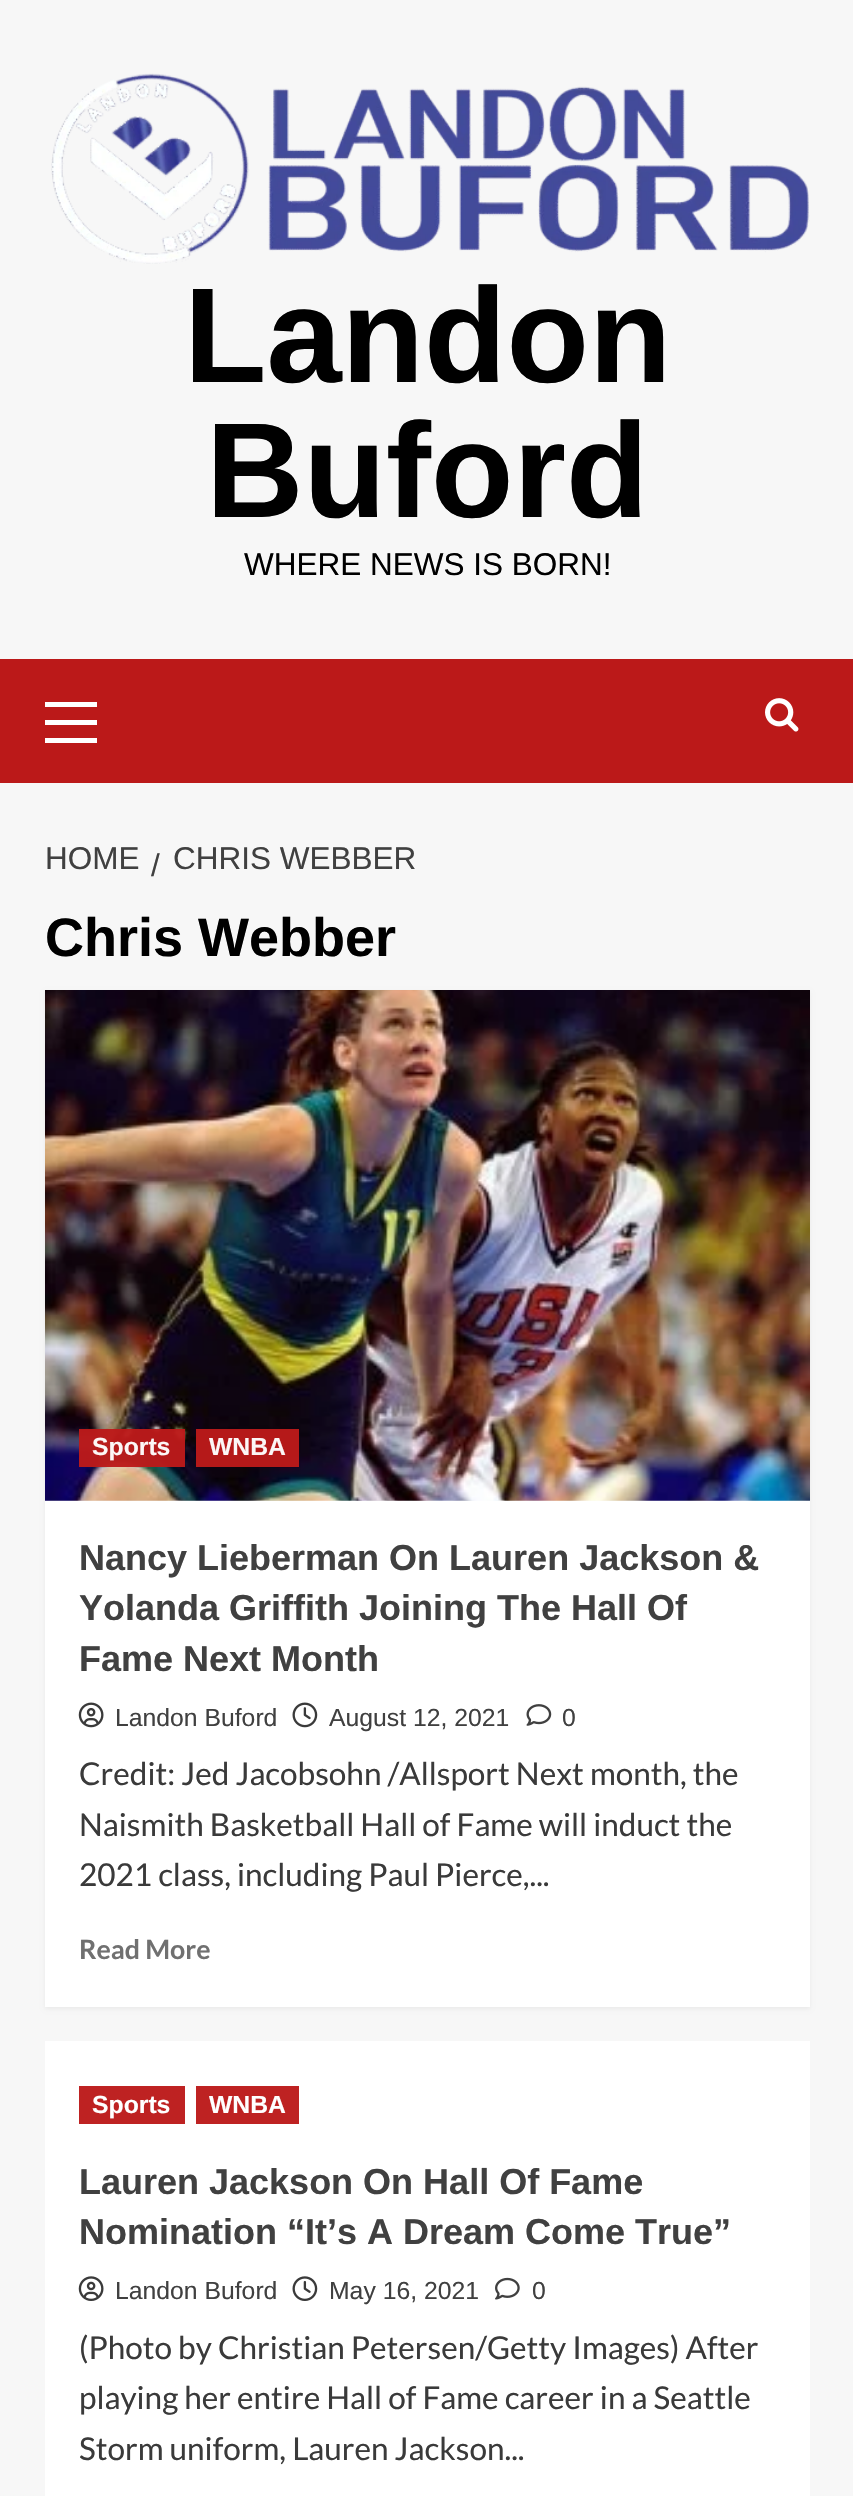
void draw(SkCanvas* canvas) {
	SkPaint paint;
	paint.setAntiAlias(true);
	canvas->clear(0xfff7f7f7);
	canvas->drawImageRect(SkImages::DeferredFromEncodedData(SkData::MakeFromFileName("img1.png")), SkRect::MakeXYWH(51, 73, 759, 191), SkSamplingOptions());
	SkFont f1(fontMgr->matchFamilyStyle("Liberation Sans", SkFontStyle::Bold()), 135);
	f1.setSubpixel(true);
	paint.setColor(0xff000000);
	canvas->drawString("Landon", 184, 382, f1, paint);
	canvas->drawString("Buford", 206, 517, f1, paint);
	SkFont f2(fontMgr->matchFamilyStyle("Liberation Sans", SkFontStyle::Normal()), 31.5);
	f2.setSubpixel(true);
	canvas->drawString("WHERE NEWS IS BORN!", 244, 575, f2, paint);
	paint.setColor(0xffbb1919);
	canvas->drawRect(SkRect::MakeXYWH(0, 659, 853, 124), paint);
	paint.setColor(0xffffffff);
	canvas->drawRect(SkRect::MakeXYWH(45, 720, 52, 5), paint);
	canvas->drawRect(SkRect::MakeXYWH(45, 702, 52, 5), paint);
	canvas->drawRect(SkRect::MakeXYWH(45, 738, 52, 5), paint);
	canvas->drawImageRect(SkImages::DeferredFromEncodedData(SkData::MakeFromFileName("img2.png")), SkRect::MakeXYWH(765, 698, 34, 34), SkSamplingOptions());
	paint.setColor(0xff404040);
	canvas->drawString("HOME", 45, 869, f2, paint);
	canvas->drawString("/", 151, 876, f2, paint);
	canvas->drawString("CHRIS WEBBER", 173, 869, f2, paint);
	SkFont f3(fontMgr->matchFamilyStyle("Liberation Sans", SkFontStyle::Bold()), 54);
	f3.setSubpixel(true);
	paint.setColor(0xff000000);
	canvas->drawString("Chris Webber", 45, 956, f3, paint);
	paint.setColor(0x0d000000);
	paint.setMaskFilter(SkMaskFilter::MakeBlur(kNormal_SkBlurStyle, 2));
	canvas->drawRect(SkRect::MakeXYWH(45, 992, 765, 1017), paint);
	paint.setMaskFilter(nullptr);
	paint.setColor(0xffffffff);
	canvas->drawRect(SkRect::MakeXYWH(45, 1500, 765, 507), paint);
	canvas->drawImageRect(SkImages::DeferredFromEncodedData(SkData::MakeFromFileName("img3.png")), SkRect::MakeXYWH(45, 990, 765, 511), SkSamplingOptions());
	paint.setColor(0xf5bb1919);
	canvas->drawRect(SkRect::MakeXYWH(79, 1429, 106, 38), paint);
	SkFont f4(fontMgr->matchFamilyStyle("Liberation Sans", SkFontStyle::Bold()), 24.75);
	f4.setSubpixel(true);
	paint.setColor(0xfffcf6f6);
	canvas->drawString("Sports", 92, 1455, f4, paint);
	paint.setColor(0xf5bb1919);
	canvas->drawRect(SkRect::MakeXYWH(196, 1429, 103, 38), paint);
	paint.setColor(0xfffcf6f6);
	canvas->drawString("WNBA", 209, 1455, f4, paint);
	SkFont f5(fontMgr->matchFamilyStyle("Liberation Sans", SkFontStyle::Bold()), 36);
	f5.setSubpixel(true);
	paint.setColor(0xff404040);
	canvas->drawString("Nancy Lieberman On Lauren Jackson &", 79, 1570, f5, paint);
	canvas->drawString("Yolanda Griffith Joining The Hall Of", 79, 1620, f5, paint);
	canvas->drawString("Fame Next Month", 79, 1671, f5, paint);
	canvas->drawImageRect(SkImages::DeferredFromEncodedData(SkData::MakeFromFileName("img4.png")), SkRect::MakeXYWH(78, 1702, 26, 26), SkSamplingOptions());
	SkFont f6(fontMgr->matchFamilyStyle("Liberation Sans", SkFontStyle::Normal()), 24.75);
	f6.setSubpixel(true);
	canvas->drawString("Landon Buford", 115, 1726, f6, paint);
	canvas->drawImageRect(SkImages::DeferredFromEncodedData(SkData::MakeFromFileName("img5.png")), SkRect::MakeXYWH(292, 1702, 26, 26), SkSamplingOptions());
	canvas->drawString("August 12, 2021", 329, 1726, f6, paint);
	canvas->drawImageRect(SkImages::DeferredFromEncodedData(SkData::MakeFromFileName("img6.png")), SkRect::MakeXYWH(526, 1704, 26, 22), SkSamplingOptions());
	canvas->drawString("0", 562, 1726, f6, paint);
	SkFont f7(fontMgr->matchFamilyStyle("Lato", SkFontStyle::Normal()), 31.5);
	f7.setSubpixel(true);
	paint.setColor(0xff3a3a3a);
	canvas->drawString("Credit: Jed Jacobsohn /Allsport Next month, the", 79, 1785, f7, paint);
	canvas->drawString("Naismith Basketball Hall of Fame will induct the", 79, 1836, f7, paint);
	canvas->drawString("2021 class, including Paul Pierce,...", 79, 1886, f7, paint);
	SkFont f8(fontMgr->matchFamilyStyle("Lato", SkFontStyle::Bold()), 26.75);
	f8.setSubpixel(true);
	paint.setColor(0xff707070);
	canvas->drawString("Read More", 79, 1959, f8, paint);
	paint.setColor(0xffffffff);
	canvas->drawRect(SkRect::MakeXYWH(45, 2041, 765, 455), paint);
	paint.setColor(0xffbe2222);
	canvas->drawRect(SkRect::MakeXYWH(79, 2086, 106, 38), paint);
	paint.setColor(0xffffffff);
	canvas->drawString("Sports", 92, 2113, f4, paint);
	paint.setColor(0xffbe2222);
	canvas->drawRect(SkRect::MakeXYWH(196, 2086, 103, 38), paint);
	paint.setColor(0xffffffff);
	canvas->drawString("WNBA", 209, 2113, f4, paint);
	paint.setColor(0xff404040);
	canvas->drawString("Lauren Jackson On Hall Of Fame", 79, 2194, f5, paint);
	canvas->drawString("Nomination “It’s A Dream Come True”", 79, 2244, f5, paint);
	canvas->drawImageRect(SkImages::DeferredFromEncodedData(SkData::MakeFromFileName("img7.png")), SkRect::MakeXYWH(78, 2276, 26, 25), SkSamplingOptions());
	canvas->drawString("Landon Buford", 115, 2299, f6, paint);
	canvas->drawImageRect(SkImages::DeferredFromEncodedData(SkData::MakeFromFileName("img8.png")), SkRect::MakeXYWH(292, 2276, 26, 25), SkSamplingOptions());
	canvas->drawString("May 16, 2021", 329, 2299, f6, paint);
	canvas->drawImageRect(SkImages::DeferredFromEncodedData(SkData::MakeFromFileName("img9.png")), SkRect::MakeXYWH(495, 2277, 25, 23), SkSamplingOptions());
	canvas->drawString("0", 532, 2299, f6, paint);
	paint.setColor(0xff3a3a3a);
	canvas->drawString("(Photo by Christian Petersen/Getty Images) After", 79, 2359, f7, paint);
	canvas->drawString("playing her entire Hall of Fame career in a Seattle", 79, 2409, f7, paint);
	canvas->drawString("Storm uniform, Lauren Jackson...", 79, 2460, f7, paint);
}
